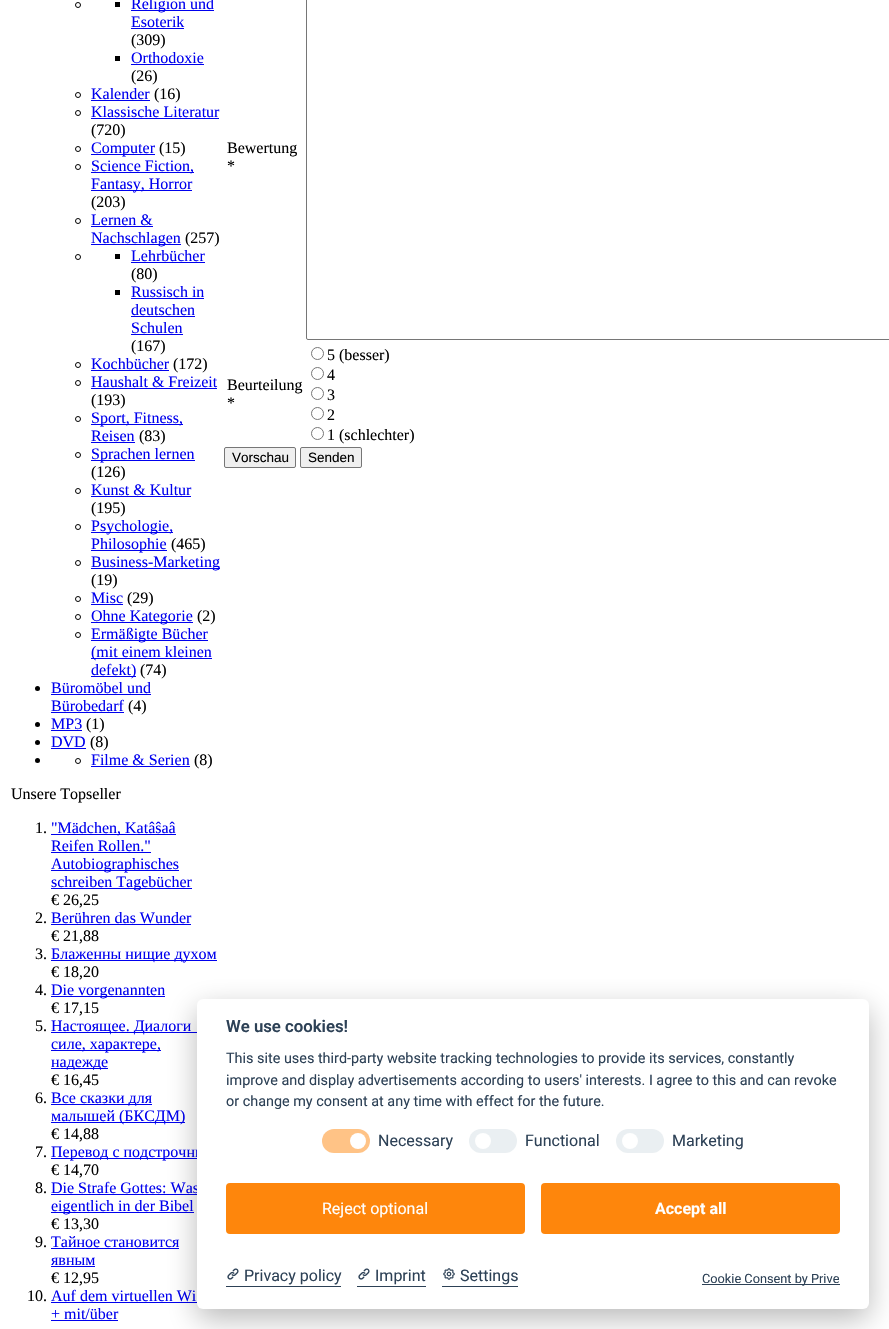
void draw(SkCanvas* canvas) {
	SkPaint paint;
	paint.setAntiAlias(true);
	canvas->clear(0xffffffff);
	paint.setStroke(true);
	paint.setStrokeWidth(1);
	paint.setColor(0xff000000);
	canvas->drawCircle(78, 5, 2.5, paint);
	paint.setStroke(false);
	canvas->drawRect(SkRect::MakeXYWH(115, 2, 5, 5), paint);
	paint.setColor(0xff0000ee);
	canvas->drawRect(SkRect::MakeXYWH(131, 10, 83, 1), paint);
	SkFont f1(fontMgr->matchFamilyStyle("Liberation Serif", SkFontStyle::Normal()), 16);
	f1.setSubpixel(true);
	canvas->drawString("Religion und", 131, 9, f1, paint);
	canvas->drawString("Esoterik", 131, 27, f1, paint);
	canvas->drawRect(SkRect::MakeXYWH(131, 28, 53, 1), paint);
	paint.setColor(0xff000000);
	canvas->drawString("(309)", 131, 45, f1, paint);
	canvas->drawRect(SkRect::MakeXYWH(115, 56, 5, 5), paint);
	paint.setColor(0xff0000ee);
	canvas->drawString("Orthodoxie", 131, 63, f1, paint);
	canvas->drawRect(SkRect::MakeXYWH(131, 64, 73, 1), paint);
	paint.setColor(0xff000000);
	canvas->drawString("(26)", 131, 81, f1, paint);
	paint.setStroke(true);
	canvas->drawCircle(78, 95, 2.5, paint);
	paint.setStroke(false);
	paint.setColor(0xff0000ee);
	canvas->drawString("Kalender", 91, 99, f1, paint);
	canvas->drawRect(SkRect::MakeXYWH(91, 100, 59, 1), paint);
	paint.setColor(0xff000000);
	canvas->drawString("(16)", 154, 99, f1, paint);
	paint.setStroke(true);
	canvas->drawCircle(78, 113, 2.5, paint);
	paint.setStroke(false);
	paint.setColor(0xff0000ee);
	canvas->drawString("Klassische Literatur", 91, 117, f1, paint);
	canvas->drawRect(SkRect::MakeXYWH(91, 118, 128, 1), paint);
	paint.setColor(0xff000000);
	canvas->drawString("(720)", 91, 135, f1, paint);
	paint.setStroke(true);
	canvas->drawCircle(78, 149, 2.5, paint);
	paint.setStroke(false);
	paint.setColor(0xff0000ee);
	canvas->drawRect(SkRect::MakeXYWH(91, 154, 64, 1), paint);
	canvas->drawString("Computer", 91, 153, f1, paint);
	paint.setColor(0xff000000);
	canvas->drawString("(15)", 159, 153, f1, paint);
	paint.setStroke(true);
	canvas->drawCircle(78, 167, 2.5, paint);
	paint.setStroke(false);
	paint.setColor(0xff0000ee);
	canvas->drawRect(SkRect::MakeXYWH(91, 172, 103, 1), paint);
	canvas->drawString("Science Fiction,", 91, 171, f1, paint);
	canvas->drawRect(SkRect::MakeXYWH(91, 190, 101, 1), paint);
	canvas->drawString("Fantasy, Horror", 91, 189, f1, paint);
	paint.setColor(0xff000000);
	canvas->drawString("(203)", 91, 207, f1, paint);
	paint.setStroke(true);
	canvas->drawCircle(78, 221, 2.5, paint);
	paint.setStroke(false);
	paint.setColor(0xff0000ee);
	canvas->drawString("Lernen &", 91, 225, f1, paint);
	canvas->drawRect(SkRect::MakeXYWH(91, 226, 62, 1), paint);
	canvas->drawRect(SkRect::MakeXYWH(91, 244, 90, 1), paint);
	canvas->drawString("Nachschlagen", 91, 243, f1, paint);
	paint.setColor(0xff000000);
	canvas->drawString("(257)", 185, 243, f1, paint);
	paint.setStroke(true);
	canvas->drawCircle(78, 257, 2.5, paint);
	paint.setStroke(false);
	canvas->drawRect(SkRect::MakeXYWH(115, 254, 5, 5), paint);
	paint.setColor(0xff0000ee);
	canvas->drawString("Lehrbücher", 131, 261, f1, paint);
	canvas->drawRect(SkRect::MakeXYWH(131, 262, 74, 1), paint);
	paint.setColor(0xff000000);
	canvas->drawString("(80)", 131, 279, f1, paint);
	canvas->drawRect(SkRect::MakeXYWH(115, 290, 5, 5), paint);
	paint.setColor(0xff0000ee);
	canvas->drawString("Russisch in", 131, 297, f1, paint);
	canvas->drawRect(SkRect::MakeXYWH(131, 298, 73, 1), paint);
	canvas->drawString("deutschen", 131, 315, f1, paint);
	canvas->drawRect(SkRect::MakeXYWH(131, 316, 64, 1), paint);
	canvas->drawString("Schulen", 131, 333, f1, paint);
	canvas->drawRect(SkRect::MakeXYWH(131, 334, 52, 1), paint);
	paint.setColor(0xff000000);
	canvas->drawString("(167)", 131, 351, f1, paint);
	paint.setStroke(true);
	canvas->drawCircle(78, 365, 2.5, paint);
	paint.setStroke(false);
	paint.setColor(0xff0000ee);
	canvas->drawString("Kochbücher", 91, 369, f1, paint);
	canvas->drawRect(SkRect::MakeXYWH(91, 370, 78, 1), paint);
	paint.setColor(0xff000000);
	canvas->drawString("(172)", 173, 369, f1, paint);
	paint.setStroke(true);
	canvas->drawCircle(78, 383, 2.5, paint);
	paint.setStroke(false);
	paint.setColor(0xff0000ee);
	canvas->drawString("Haushalt & Freizeit", 91, 387, f1, paint);
	canvas->drawRect(SkRect::MakeXYWH(91, 388, 126, 1), paint);
	paint.setColor(0xff000000);
	canvas->drawString("(193)", 91, 405, f1, paint);
	paint.setStroke(true);
	canvas->drawCircle(78, 419, 2.5, paint);
	paint.setStroke(false);
	paint.setColor(0xff0000ee);
	canvas->drawRect(SkRect::MakeXYWH(91, 424, 92, 1), paint);
	canvas->drawString("Sport, Fitness,", 91, 423, f1, paint);
	canvas->drawString("Reisen", 91, 441, f1, paint);
	canvas->drawRect(SkRect::MakeXYWH(91, 442, 44, 1), paint);
	paint.setColor(0xff000000);
	canvas->drawString("(83)", 139, 441, f1, paint);
	paint.setStroke(true);
	canvas->drawCircle(78, 455, 2.5, paint);
	paint.setStroke(false);
	paint.setColor(0xff0000ee);
	canvas->drawRect(SkRect::MakeXYWH(91, 460, 104, 1), paint);
	canvas->drawString("Sprachen lernen", 91, 459, f1, paint);
	paint.setColor(0xff000000);
	canvas->drawString("(126)", 91, 477, f1, paint);
	paint.setStroke(true);
	canvas->drawCircle(78, 491, 2.5, paint);
	paint.setStroke(false);
	paint.setColor(0xff0000ee);
	canvas->drawString("Kunst & Kultur", 91, 495, f1, paint);
	canvas->drawRect(SkRect::MakeXYWH(91, 496, 100, 1), paint);
	paint.setColor(0xff000000);
	canvas->drawString("(195)", 91, 513, f1, paint);
	paint.setStroke(true);
	canvas->drawCircle(78, 527, 2.5, paint);
	paint.setStroke(false);
	paint.setColor(0xff0000ee);
	canvas->drawRect(SkRect::MakeXYWH(91, 532, 82, 1), paint);
	canvas->drawString("Psychologie,", 91, 531, f1, paint);
	canvas->drawRect(SkRect::MakeXYWH(91, 550, 76, 1), paint);
	canvas->drawString("Philosophie", 91, 549, f1, paint);
	paint.setColor(0xff000000);
	canvas->drawString("(465)", 171, 549, f1, paint);
	paint.setStroke(true);
	canvas->drawCircle(78, 563, 2.5, paint);
	paint.setStroke(false);
	paint.setColor(0xff0000ee);
	canvas->drawRect(SkRect::MakeXYWH(91, 568, 129, 1), paint);
	canvas->drawString("Business-Marketing", 91, 567, f1, paint);
	paint.setColor(0xff000000);
	canvas->drawString("(19)", 91, 585, f1, paint);
	paint.setStroke(true);
	canvas->drawCircle(78, 599, 2.5, paint);
	paint.setStroke(false);
	paint.setColor(0xff0000ee);
	canvas->drawString("Misc", 91, 603, f1, paint);
	canvas->drawRect(SkRect::MakeXYWH(91, 604, 32, 1), paint);
	paint.setColor(0xff000000);
	canvas->drawString("(29)", 127, 603, f1, paint);
	paint.setStroke(true);
	canvas->drawCircle(78, 617, 2.5, paint);
	paint.setStroke(false);
	paint.setColor(0xff0000ee);
	canvas->drawRect(SkRect::MakeXYWH(91, 622, 102, 1), paint);
	canvas->drawString("Ohne Kategorie", 91, 621, f1, paint);
	paint.setColor(0xff000000);
	canvas->drawString("(2)", 197, 621, f1, paint);
	paint.setStroke(true);
	canvas->drawCircle(78, 635, 2.5, paint);
	paint.setStroke(false);
	paint.setColor(0xff0000ee);
	canvas->drawRect(SkRect::MakeXYWH(91, 640, 117, 1), paint);
	canvas->drawString("Ermäßigte Bücher", 91, 639, f1, paint);
	canvas->drawRect(SkRect::MakeXYWH(91, 658, 121, 1), paint);
	canvas->drawString("(mit einem kleinen", 91, 657, f1, paint);
	canvas->drawRect(SkRect::MakeXYWH(91, 676, 45, 1), paint);
	canvas->drawString("defekt)", 91, 675, f1, paint);
	paint.setColor(0xff000000);
	canvas->drawString("(74)", 140, 675, f1, paint);
	canvas->drawCircle(37.5, 688.5, 2.5, paint);
	paint.setColor(0xff0000ee);
	canvas->drawString("Büromöbel und", 51, 693, f1, paint);
	canvas->drawRect(SkRect::MakeXYWH(51, 694, 100, 1), paint);
	canvas->drawString("Bürobedarf", 51, 711, f1, paint);
	canvas->drawRect(SkRect::MakeXYWH(51, 712, 73, 1), paint);
	paint.setColor(0xff000000);
	canvas->drawString("(4)", 128, 711, f1, paint);
	canvas->drawCircle(37.5, 724.5, 2.5, paint);
	paint.setColor(0xff0000ee);
	canvas->drawString("MP3", 51, 729, f1, paint);
	canvas->drawRect(SkRect::MakeXYWH(51, 730, 31, 1), paint);
	paint.setColor(0xff000000);
	canvas->drawString("(1)", 86, 729, f1, paint);
	canvas->drawCircle(37.5, 742.5, 2.5, paint);
	paint.setColor(0xff0000ee);
	canvas->drawString("DVD", 51, 747, f1, paint);
	canvas->drawRect(SkRect::MakeXYWH(51, 748, 35, 1), paint);
	paint.setColor(0xff000000);
	canvas->drawString("(8)", 90, 747, f1, paint);
	canvas->drawCircle(37.5, 760.5, 2.5, paint);
	paint.setStroke(true);
	canvas->drawCircle(78, 761, 2.5, paint);
	paint.setStroke(false);
	paint.setColor(0xff0000ee);
	canvas->drawString("Filme & Serien", 91, 765, f1, paint);
	canvas->drawRect(SkRect::MakeXYWH(91, 766, 99, 1), paint);
	paint.setColor(0xff000000);
	canvas->drawString("(8)", 194, 765, f1, paint);
	canvas->drawString("Unsere Topseller", 11, 799, f1, paint);
	canvas->drawString("1.", 35, 833, f1, paint);
	paint.setColor(0xff0000ee);
	canvas->drawRect(SkRect::MakeXYWH(51, 834, 125, 1), paint);
	canvas->drawString("\"Mädchen, Katâŝaâ", 51, 833, f1, paint);
	canvas->drawString("Reifen Rollen.\"", 51, 851, f1, paint);
	canvas->drawRect(SkRect::MakeXYWH(51, 852, 100, 1), paint);
	canvas->drawRect(SkRect::MakeXYWH(51, 870, 128, 1), paint);
	canvas->drawString("Autobiographisches", 51, 869, f1, paint);
	canvas->drawRect(SkRect::MakeXYWH(51, 888, 141, 1), paint);
	canvas->drawString("schreiben Tagebücher", 51, 887, f1, paint);
	paint.setColor(0xff000000);
	canvas->drawString("€ 26,25", 51, 905, f1, paint);
	canvas->drawString("2.", 35, 923, f1, paint);
	paint.setColor(0xff0000ee);
	canvas->drawString("Berühren das Wunder", 51, 923, f1, paint);
	canvas->drawRect(SkRect::MakeXYWH(51, 924, 140, 1), paint);
	paint.setColor(0xff000000);
	canvas->drawString("€ 21,88", 51, 941, f1, paint);
	canvas->drawString("3.", 35, 959, f1, paint);
	paint.setColor(0xff0000ee);
	canvas->drawRect(SkRect::MakeXYWH(51, 960, 166, 1), paint);
	canvas->drawString("Блаженны нищие духом", 51, 959, f1, paint);
	paint.setColor(0xff000000);
	canvas->drawString("€ 18,20", 51, 977, f1, paint);
	canvas->drawString("4.", 35, 995, f1, paint);
	paint.setColor(0xff0000ee);
	canvas->drawRect(SkRect::MakeXYWH(51, 996, 114, 1), paint);
	canvas->drawString("Die vorgenannten", 51, 995, f1, paint);
	paint.setColor(0xff000000);
	canvas->drawString("€ 17,15", 51, 1013, f1, paint);
	canvas->drawString("5.", 35, 1031, f1, paint);
	paint.setColor(0xff0000ee);
	canvas->drawRect(SkRect::MakeXYWH(51, 1032, 152, 1), paint);
	canvas->drawString("Настоящее. Диалоги", 51, 1031, f1, paint);
	canvas->drawRect(SkRect::MakeXYWH(51, 1050, 110, 1), paint);
	canvas->drawString("силе, характере,", 51, 1049, f1, paint);
	canvas->drawRect(SkRect::MakeXYWH(51, 1068, 57, 1), paint);
	canvas->drawString("надежде", 51, 1067, f1, paint);
	paint.setColor(0xff000000);
	canvas->drawString("€ 16,45", 51, 1085, f1, paint);
	canvas->drawString("6.", 35, 1103, f1, paint);
	paint.setColor(0xff0000ee);
	canvas->drawRect(SkRect::MakeXYWH(51, 1104, 101, 1), paint);
	canvas->drawString("Все сказки для", 51, 1103, f1, paint);
	canvas->drawRect(SkRect::MakeXYWH(51, 1122, 134, 1), paint);
	canvas->drawString("малышей (БКСДМ)", 51, 1121, f1, paint);
	paint.setColor(0xff000000);
	canvas->drawString("€ 14,88", 51, 1139, f1, paint);
	canvas->drawString("7.", 35, 1157, f1, paint);
	paint.setColor(0xff0000ee);
	canvas->drawRect(SkRect::MakeXYWH(51, 1158, 146, 1), paint);
	canvas->drawString("Перевод с подстрочни", 51, 1157, f1, paint);
	paint.setColor(0xff000000);
	canvas->drawString("€ 14,70", 51, 1175, f1, paint);
	canvas->drawString("8.", 35, 1193, f1, paint);
	paint.setColor(0xff0000ee);
	canvas->drawString("Die Strafe Gottes: Was", 51, 1193, f1, paint);
	canvas->drawRect(SkRect::MakeXYWH(51, 1194, 146, 1), paint);
	canvas->drawRect(SkRect::MakeXYWH(51, 1212, 143, 1), paint);
	canvas->drawString("eigentlich in der Bibel", 51, 1211, f1, paint);
	paint.setColor(0xff000000);
	canvas->drawString("€ 13,30", 51, 1229, f1, paint);
	canvas->drawString("9.", 35, 1247, f1, paint);
	paint.setColor(0xff0000ee);
	canvas->drawString("Тайное становится", 51, 1247, f1, paint);
	canvas->drawRect(SkRect::MakeXYWH(51, 1248, 128, 1), paint);
	canvas->drawString("явным", 51, 1265, f1, paint);
	canvas->drawRect(SkRect::MakeXYWH(51, 1266, 44, 1), paint);
	paint.setColor(0xff000000);
	canvas->drawString("€ 12,95", 51, 1283, f1, paint);
	canvas->drawString("10.", 27, 1301, f1, paint);
	paint.setColor(0xff0000ee);
	canvas->drawString("Auf dem virtuellen Wi", 51, 1301, f1, paint);
	canvas->drawRect(SkRect::MakeXYWH(51, 1302, 146, 1), paint);
	canvas->drawString("+ mit/über", 51, 1319, f1, paint);
	canvas->drawRect(SkRect::MakeXYWH(51, 1320, 67, 1), paint);
	paint.setColor(0xff000000);
	canvas->drawString("Bewertung", 227, 153, f1, paint);
	canvas->drawString("*", 227, 171, f1, paint);
	paint.setStroke(true);
	paint.setColor(0xff767676);
	canvas->drawRoundRect(SkRect::MakeXYWH(306.5, -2.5, 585, 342), 1.5, 1.5, paint);
	paint.setStroke(false);
	paint.setColor(0xff000000);
	canvas->drawString("Beurteilung", 227, 390, f1, paint);
	canvas->drawString("*", 227, 408, f1, paint);
	paint.setStroke(true);
	paint.setColor(0xff767676);
	canvas->drawCircle(317.5, 353.5, 6, paint);
	paint.setStroke(false);
	paint.setColor(0xff000000);
	canvas->drawString("5 (besser)", 327, 360, f1, paint);
	paint.setStroke(true);
	paint.setColor(0xff767676);
	canvas->drawCircle(317.5, 373.5, 6, paint);
	paint.setStroke(false);
	paint.setColor(0xff000000);
	canvas->drawString("4", 327, 380, f1, paint);
	paint.setStroke(true);
	paint.setColor(0xff767676);
	canvas->drawCircle(317.5, 393.5, 6, paint);
	paint.setStroke(false);
	paint.setColor(0xff000000);
	canvas->drawString("3", 327, 400, f1, paint);
	paint.setStroke(true);
	paint.setColor(0xff767676);
	canvas->drawCircle(317.5, 413.5, 6, paint);
	paint.setStroke(false);
	paint.setColor(0xff000000);
	canvas->drawString("2", 327, 420, f1, paint);
	paint.setStroke(true);
	paint.setColor(0xff767676);
	canvas->drawCircle(317.5, 433.5, 6, paint);
	paint.setStroke(false);
	paint.setColor(0xff000000);
	canvas->drawString("1 (schlechter)", 327, 440, f1, paint);
	paint.setColor(0xffefefef);
	canvas->drawRoundRect(SkRect::MakeXYWH(224.5, 447.5, 71, 20), 1.5, 1.5, paint);
	paint.setStroke(true);
	paint.setColor(0xff767676);
	canvas->drawRoundRect(SkRect::MakeXYWH(224.5, 447.5, 71, 20), 1.5, 1.5, paint);
	SkFont f2(fontMgr->matchFamilyStyle("Liberation Sans", SkFontStyle::Normal()), 13.5);
	f2.setSubpixel(true);
	paint.setStroke(false);
	paint.setColor(0xff000000);
	canvas->drawString("Vorschau", 232, 462, f2, paint);
	paint.setColor(0xffefefef);
	canvas->drawRoundRect(SkRect::MakeXYWH(300.5, 447.5, 61, 20), 1.5, 1.5, paint);
	paint.setStroke(true);
	paint.setColor(0xff767676);
	canvas->drawRoundRect(SkRect::MakeXYWH(300.5, 447.5, 61, 20), 1.5, 1.5, paint);
	paint.setStroke(false);
	paint.setColor(0xff000000);
	canvas->drawString("Senden", 308, 462, f2, paint);
	paint.setColor(0x47020203);
	paint.setMaskFilter(SkMaskFilter::MakeBlur(kNormal_SkBlurStyle, 15));
	canvas->drawRoundRect(SkRect::MakeXYWH(197, 1009, 672, 310), 6, 6, paint);
	paint.setMaskFilter(nullptr);
	paint.setColor(0xffffffff);
	canvas->drawRoundRect(SkRect::MakeXYWH(197, 999, 672, 310), 6, 6, paint);
	SkFont f3(fontMgr->matchFamilyStyle("Roboto", SkFontStyle(600, SkFontStyle::kNormal_Width, SkFontStyle::kUpright_Slant)), 16.75);
	f3.setSubpixel(true);
	paint.setColor(0xff2d4156);
	canvas->drawString("We use cookies!", 226, 1032, f3, paint);
	SkFont f4(fontMgr->matchFamilyStyle("Roboto", SkFontStyle::Normal()), 14.4);
	f4.setSubpixel(true);
	canvas->drawString("This site uses third-party website tracking technologies to provide its services, constantly", 226, 1063, f4, paint);
	canvas->drawString("improve and display advertisements according to users' interests. I agree to this and can revoke", 226, 1085, f4, paint);
	canvas->drawString("or change my consent at any time with effect for the future.", 226, 1106, f4, paint);
	paint.setColor(0xffffc386);
	canvas->drawRoundRect(SkRect::MakeXYWH(322, 1129, 48, 24), 12, 12, paint);
	paint.setColor(0xffffffff);
	canvas->drawCircle(358, 1141, 8, paint);
	SkFont f5(fontMgr->matchFamilyStyle("Roboto", SkFontStyle::Normal()), 16);
	f5.setSubpixel(true);
	paint.setColor(0xff2d4156);
	canvas->drawString("Necessary", 378, 1146, f5, paint);
	paint.setColor(0xffeaeff2);
	canvas->drawRoundRect(SkRect::MakeXYWH(469, 1129, 48, 24), 12, 12, paint);
	paint.setColor(0xffffffff);
	canvas->drawCircle(483, 1141, 8, paint);
	paint.setColor(0xff2d4156);
	canvas->drawString("Functional", 525, 1146, f5, paint);
	paint.setColor(0xffeaeff2);
	canvas->drawRoundRect(SkRect::MakeXYWH(616, 1129, 48, 24), 12, 12, paint);
	paint.setColor(0xffffffff);
	canvas->drawCircle(630, 1141, 8, paint);
	paint.setColor(0xff2d4156);
	canvas->drawString("Marketing", 672, 1146, f5, paint);
	paint.setColor(0xfffe860c);
	canvas->drawRoundRect(SkRect::MakeXYWH(226, 1183, 299, 51), 4, 4, paint);
	paint.setColor(0xffffffff);
	canvas->drawString("Reject optional", 322, 1214, f5, paint);
	paint.setColor(0xfffe860c);
	canvas->drawRoundRect(SkRect::MakeXYWH(541, 1183, 299, 51), 4, 4, paint);
	SkFont f6(fontMgr->matchFamilyStyle("Roboto", SkFontStyle::Bold()), 16);
	f6.setSubpixel(true);
	paint.setColor(0xffffffff);
	canvas->drawString("Accept all", 655, 1214, f6, paint);
	paint.setColor(0xff2d4156);
	canvas->drawRect(SkRect::MakeXYWH(226, 1286, 115, 1), paint);
	canvas->drawImageRect(SkImages::DeferredFromEncodedData(SkData::MakeFromFileName("img1.png")), SkRect::MakeXYWH(227, 1268, 12, 12), SkSamplingOptions());
	canvas->drawString("Privacy policy", 244, 1281, f5, paint);
	canvas->drawRect(SkRect::MakeXYWH(357, 1286, 69, 1), paint);
	canvas->drawImageRect(SkImages::DeferredFromEncodedData(SkData::MakeFromFileName("img1.png")), SkRect::MakeXYWH(358, 1268, 12, 12), SkSamplingOptions());
	canvas->drawString("Imprint", 375, 1281, f5, paint);
	canvas->drawRect(SkRect::MakeXYWH(442, 1286, 76, 1), paint);
	canvas->drawImageRect(SkImages::DeferredFromEncodedData(SkData::MakeFromFileName("img2.png")), SkRect::MakeXYWH(443, 1268, 12, 12), SkSamplingOptions());
	canvas->drawString("Settings", 460, 1281, f5, paint);
	canvas->drawRect(SkRect::MakeXYWH(702, 1284, 138, 1), paint);
	SkFont f7(fontMgr->matchFamilyStyle("Roboto", SkFontStyle::Normal()), 12.75);
	f7.setSubpixel(true);
	canvas->drawString("Cookie Consent by Prive", 702, 1283, f7, paint);
}
